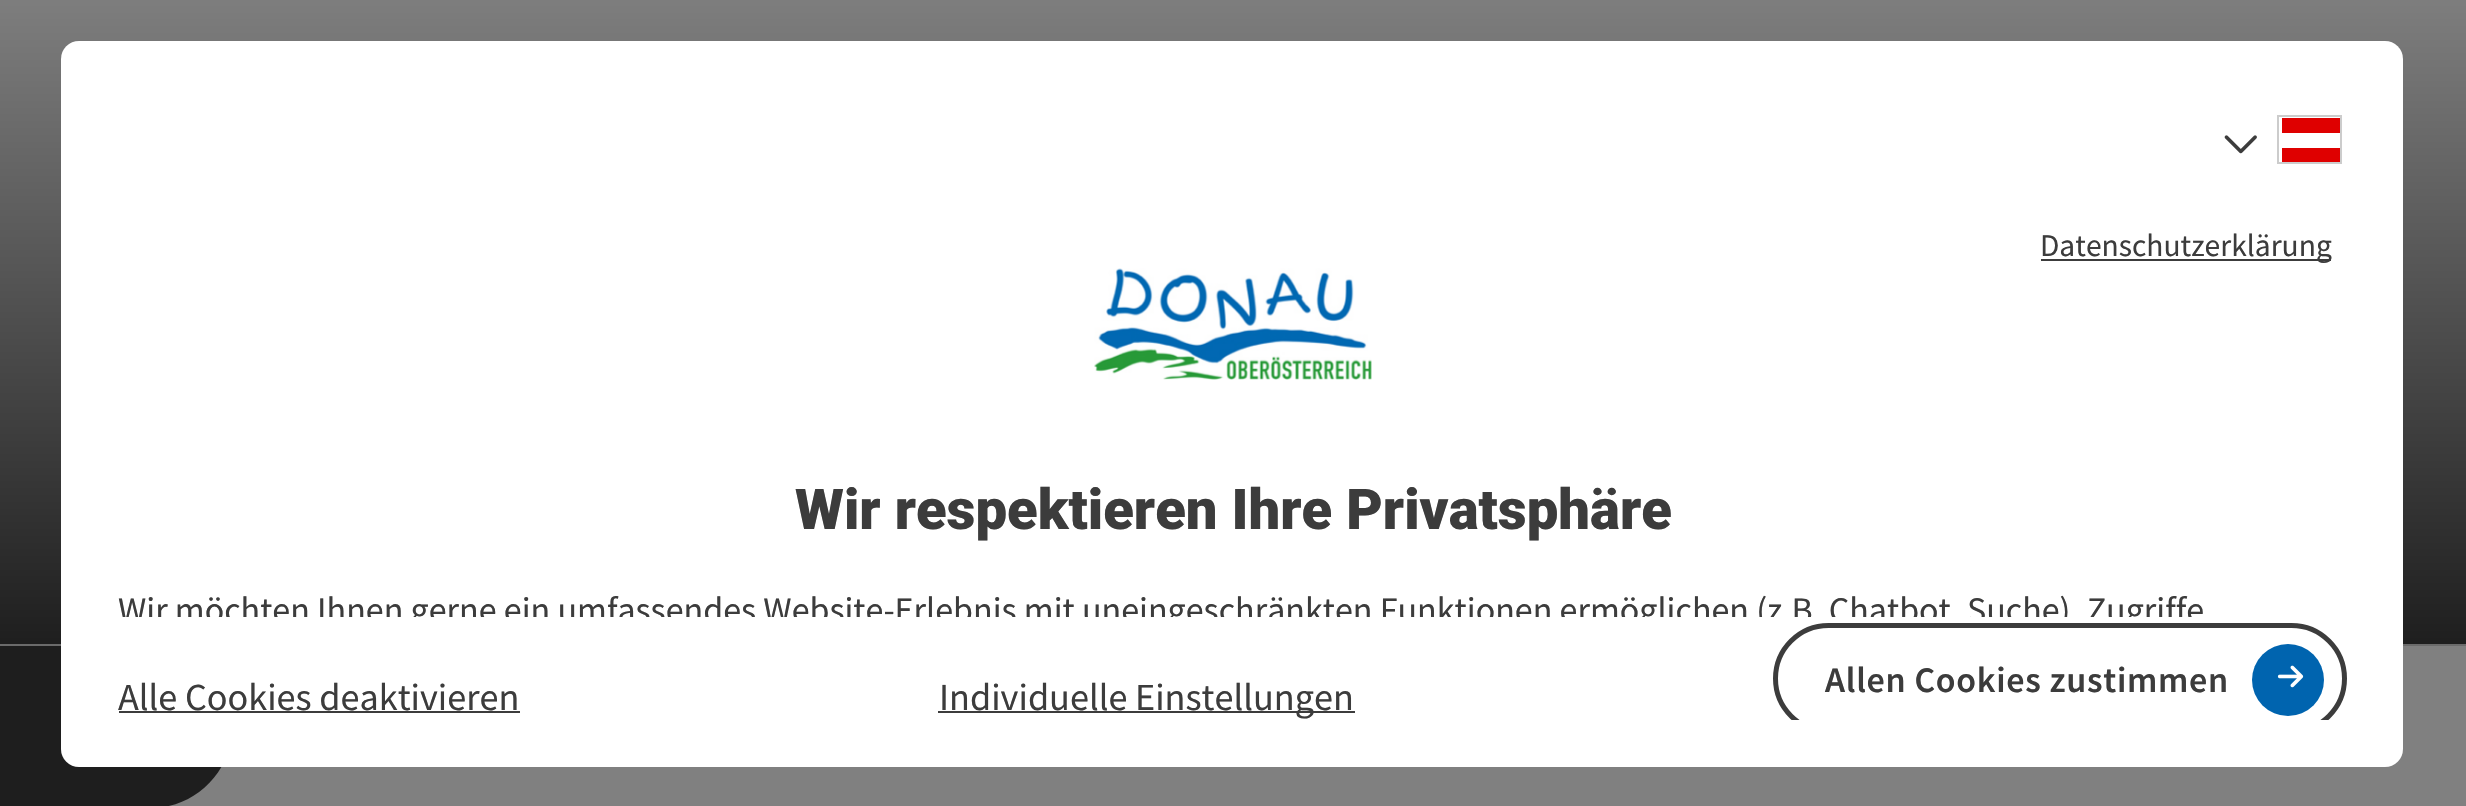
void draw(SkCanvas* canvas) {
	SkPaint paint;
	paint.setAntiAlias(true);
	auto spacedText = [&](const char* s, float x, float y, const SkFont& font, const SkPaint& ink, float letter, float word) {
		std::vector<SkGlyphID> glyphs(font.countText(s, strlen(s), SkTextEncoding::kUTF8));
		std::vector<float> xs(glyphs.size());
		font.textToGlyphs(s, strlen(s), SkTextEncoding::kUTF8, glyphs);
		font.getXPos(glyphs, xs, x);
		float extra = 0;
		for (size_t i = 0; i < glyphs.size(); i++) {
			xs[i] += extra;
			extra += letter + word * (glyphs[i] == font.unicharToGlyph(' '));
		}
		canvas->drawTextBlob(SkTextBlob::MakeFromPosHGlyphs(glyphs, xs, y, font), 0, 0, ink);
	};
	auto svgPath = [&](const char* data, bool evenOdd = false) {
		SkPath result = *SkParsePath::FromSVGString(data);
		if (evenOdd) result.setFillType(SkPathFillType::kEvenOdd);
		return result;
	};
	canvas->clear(0xffffffff);
	{
		const SkColor colors[] = {0xff808080, 0xff1a1a1a};
		const float stops[] = {0, 1};
		const SkPoint ends[] = {{1233, -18}, {1233, 675}};
		paint.setShader(SkGradientShader::MakeLinear(ends, colors, stops, 2, SkTileMode::kClamp));
		paint.setAlpha(255);
	}
	canvas->drawRect(SkRect::MakeXYWH(0, 0, 2466, 644), paint);
	paint.setShader(nullptr);
	paint.setColor(0xff808080);
	canvas->drawRect(SkRect::MakeXYWH(169, 646, 2297, 160), paint);
	paint.setColor(0xff6b6b6b);
	canvas->drawRect(SkRect::MakeXYWH(0, 644, 2466, 2), paint);
	paint.setColor(0xff1e1e1e);
	canvas->drawPath(svgPath("M0 646H151C195.5 646 232 682.5 232 727C232 771.5 195.5 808 151 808H0Z"), paint);
	paint.setColor(0xffffffff);
	canvas->drawRoundRect(SkRect::MakeXYWH(61, 41, 2342, 726), 18, 18, paint);
	canvas->drawImageRect(SkImages::DeferredFromEncodedData(SkData::MakeFromFileName("img1.png")), SkRect::MakeXYWH(2224, 135, 33, 19), SkSamplingOptions());
	canvas->save();
	canvas->clipRect(SkRect::MakeXYWH(2282, 117, 58, 45));
	paint.setColor(0xffdf0000);
	canvas->drawPath(svgPath("M2340 163H2280V148H2340ZM2340 133H2280V118H2340Z", true), paint);
	canvas->restore();
	paint.setStroke(true);
	paint.setStrokeWidth(2);
	paint.setColor(0xffcccccc);
	canvas->drawRect(SkRect::MakeXYWH(2278, 116, 63, 47), paint);
	paint.setStroke(false);
	paint.setColor(0xff3c3c3c);
	canvas->drawRect(SkRect::MakeXYWH(2041, 259, 290, 2), paint);
	SkFont f1(fontMgr->matchFamilyStyle("Source Sans Pro", SkFontStyle::Normal()), 31.5);
	f1.setSubpixel(true);
	canvas->drawString("Datenschutzerklärung", 2040, 256, f1, paint);
	canvas->drawImageRect(SkImages::DeferredFromEncodedData(SkData::MakeFromFileName("img2.png")), SkRect::MakeXYWH(1094, 268, 278, 112), SkSamplingOptions());
	SkFont f2(fontMgr->matchFamilyStyle("Roboto", SkFontStyle(900, SkFontStyle::kNormal_Width, SkFontStyle::kUpright_Slant)), 56.25);
	f2.setSubpixel(true);
	canvas->drawString("Wir respektieren Ihre Privatsphäre", 795, 529, f2, paint);
	canvas->save();
	canvas->clipRect(SkRect::MakeXYWH(99, 88, 2266, 529));
	SkFont f3(fontMgr->matchFamilyStyle("Source Sans Pro", SkFontStyle::Normal()), 36);
	f3.setSubpixel(true);
	canvas->drawString("Wir möchten Ihnen gerne ein umfassendes Website-Erlebnis mit uneingeschränkten Funktionen ermöglichen (z.B. Chatbot, Suche), Zugriffe", 118, 622, f3, paint);
	canvas->restore();
	SkFont f4(fontMgr->matchFamilyStyle("Source Sans Pro", SkFontStyle::Normal()), 38.25);
	f4.setSubpixel(true);
	canvas->drawString("Alle Cookies deaktivieren", 118, 710, f4, paint);
	canvas->drawRect(SkRect::MakeXYWH(119, 711, 401, 2), paint);
	canvas->drawRect(SkRect::MakeXYWH(938, 711, 417, 2), paint);
	canvas->drawString("Individuelle Einstellungen", 939, 710, f4, paint);
	canvas->save();
	canvas->clipRect(SkRect::MakeXYWH(99, 88, 2266, 632));
	paint.setStroke(true);
	paint.setStrokeWidth(5);
	canvas->drawRoundRect(SkRect::MakeXYWH(1775.5, 625.5, 569, 106), 53, 53, paint);
	canvas->restore();
	paint.setStroke(false);
	paint.setColor(0xff0064af);
	canvas->drawCircle(2288, 680, 36, paint);
	SkFont f5(fontMgr->matchFamilyStyle("Source Sans Pro", SkFontStyle(600, SkFontStyle::kNormal_Width, SkFontStyle::kUpright_Slant)), 36);
	f5.setSubpixel(true);
	paint.setColor(0xff3c3c3c);
	spacedText("Allen Cookies zustimmen", 1825, 692, f5, paint, 0.7, 0);
	canvas->drawImageRect(SkImages::DeferredFromEncodedData(SkData::MakeFromFileName("img3.png")), SkRect::MakeXYWH(2277, 665, 27, 23), SkSamplingOptions());
}
